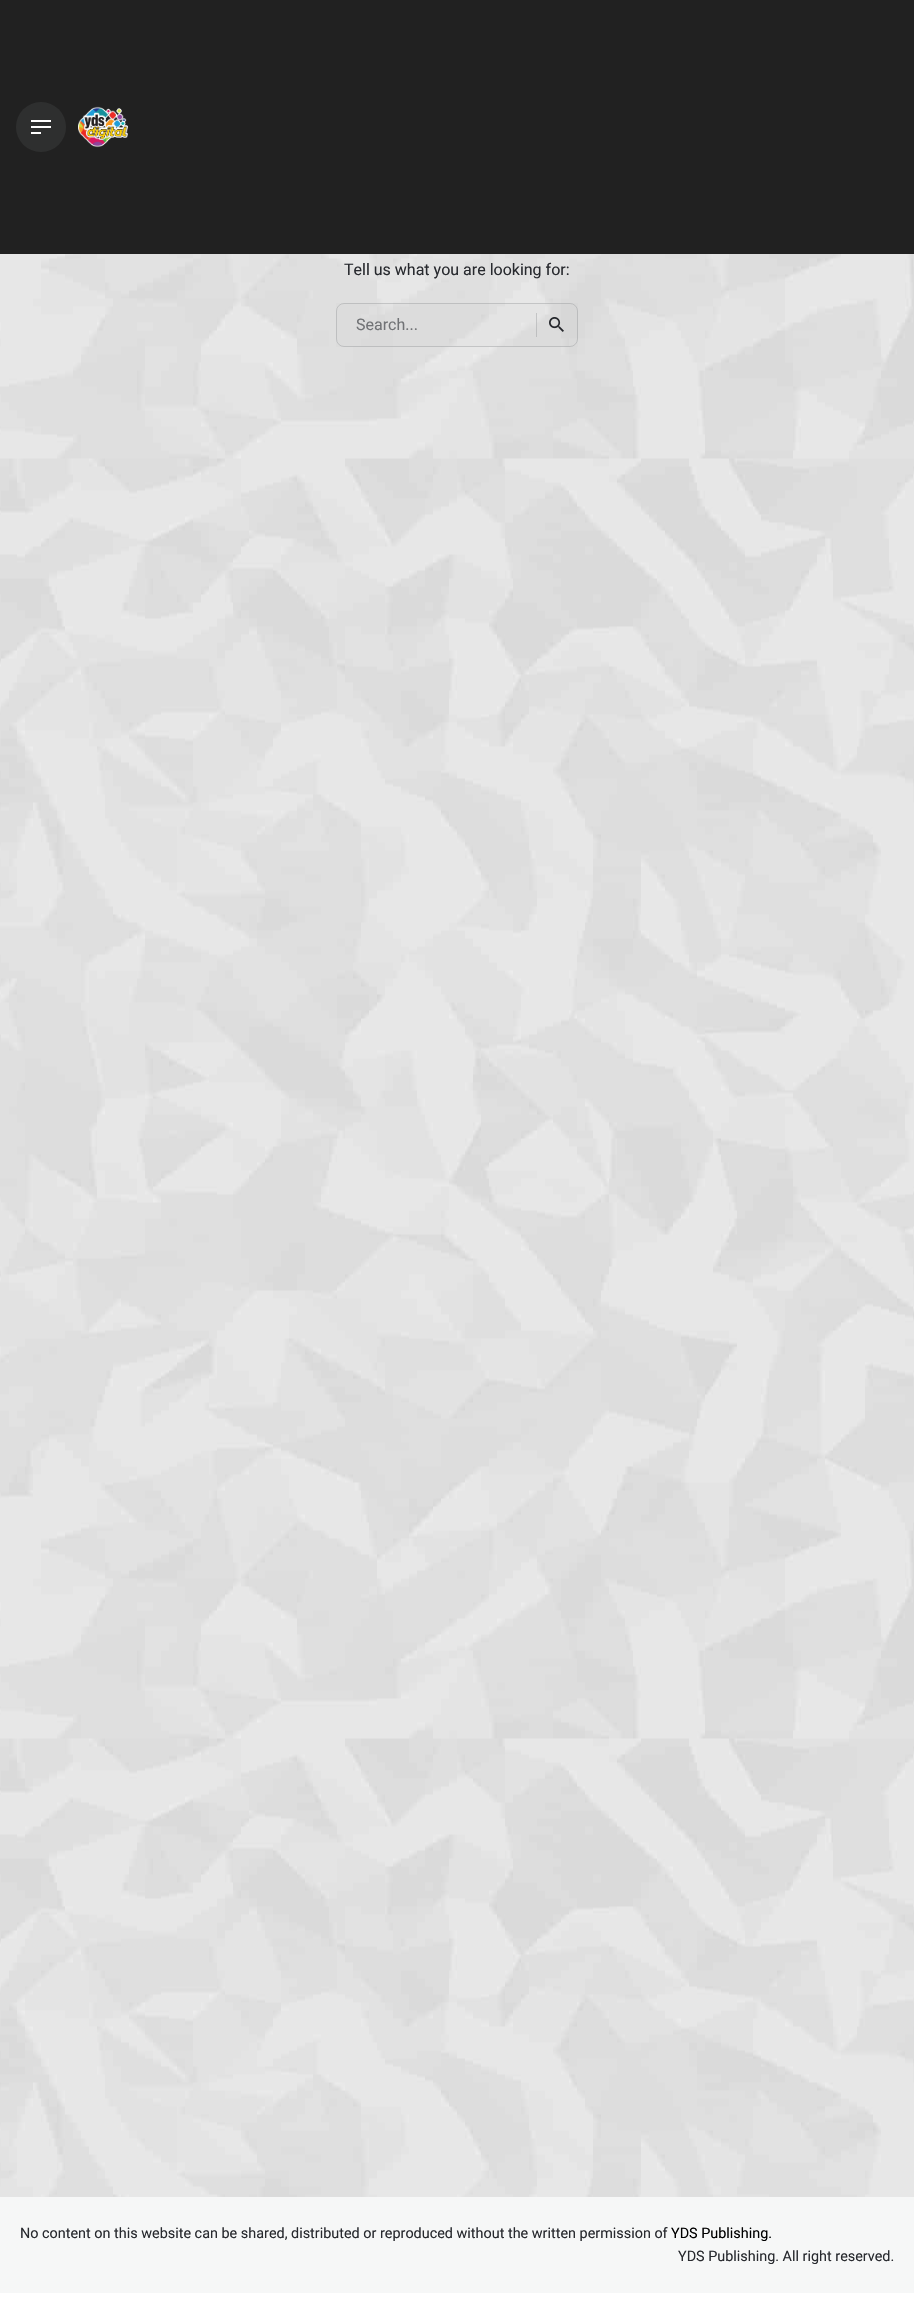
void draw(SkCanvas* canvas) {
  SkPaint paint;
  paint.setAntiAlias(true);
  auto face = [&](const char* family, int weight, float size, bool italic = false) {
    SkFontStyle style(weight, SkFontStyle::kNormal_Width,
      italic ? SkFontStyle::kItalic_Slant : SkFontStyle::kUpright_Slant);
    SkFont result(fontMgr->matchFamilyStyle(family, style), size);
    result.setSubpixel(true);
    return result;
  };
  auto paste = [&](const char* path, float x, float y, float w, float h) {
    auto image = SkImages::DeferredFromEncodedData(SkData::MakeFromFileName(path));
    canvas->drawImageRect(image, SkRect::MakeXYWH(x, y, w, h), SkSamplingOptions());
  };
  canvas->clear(0xffffffff);
  paint.setColor(0xff212121);
  canvas->drawRect(SkRect::MakeXYWH(0, 0, 914, 254), paint);
  paint.setColor(0xff2e2f2f);
  canvas->drawCircle(41, 127, 25, paint);
  {
    const struct { float x, y, w, h; SkColor color; } items[] = {
      {31, 120, 20, 2, 0xffffffff},
      {31, 126, 20, 2, 0xffffffff},
      {31, 132, 10, 2, 0xffffffff},
    };
    for (auto [x, y, w, h, color] : items) {
      paint.setColor(color);
      canvas->drawRect(SkRect::MakeXYWH(x, y, w, h), paint);
    }
  }
  paste("img/1.png", 78, 106, 50, 42);
  paste("img/2.png", 0, 254, 914, 1943);
  paint.setColor(0x0a919395);
  canvas->drawRect(SkRect::MakeXYWH(336, 303, 242, 44), paint);
  paint.setStroke(true);
  paint.setStrokeWidth(1);
  paint.setColor(0x66919395);
  canvas->drawRoundRect(SkRect::MakeXYWH(336.5f, 303.5f, 241, 43), 7.5f, 7.5f, paint);
  paint.setStroke(false);
  canvas->drawRect(SkRect::MakeXYWH(536, 313, 1, 24), paint);
  paste("img/3.png", 549, 317, 15, 15);
  paint.setColor(0xfff6f7f7);
  canvas->drawRect(SkRect::MakeXYWH(0, 2197, 914, 96), paint);
  auto f0 = face("Roboto", 400, 16);
  paint.setColor(0xff282a2f);
  canvas->drawString("Tell us what you are looking for:", 344, 275, f0, paint);
  paint.setColor(0xff717376);
  canvas->drawString("Search...", 356, 330, f0, paint);
  auto f1 = face("Roboto", 400, 14.4f);
  paint.setColor(0xff282a2f);
  canvas->drawString("No content on this website can be shared, distributed or reproduced without the written permission of", 20, 2238, f1, paint);
  paint.setColor(0xff000000);
  canvas->drawString("YDS Publishing.", 671, 2238, f1, paint);
  paint.setColor(0xff282a2f);
  canvas->drawString("YDS Publishing. All right reserved.", 678, 2261, f1, paint);
}
